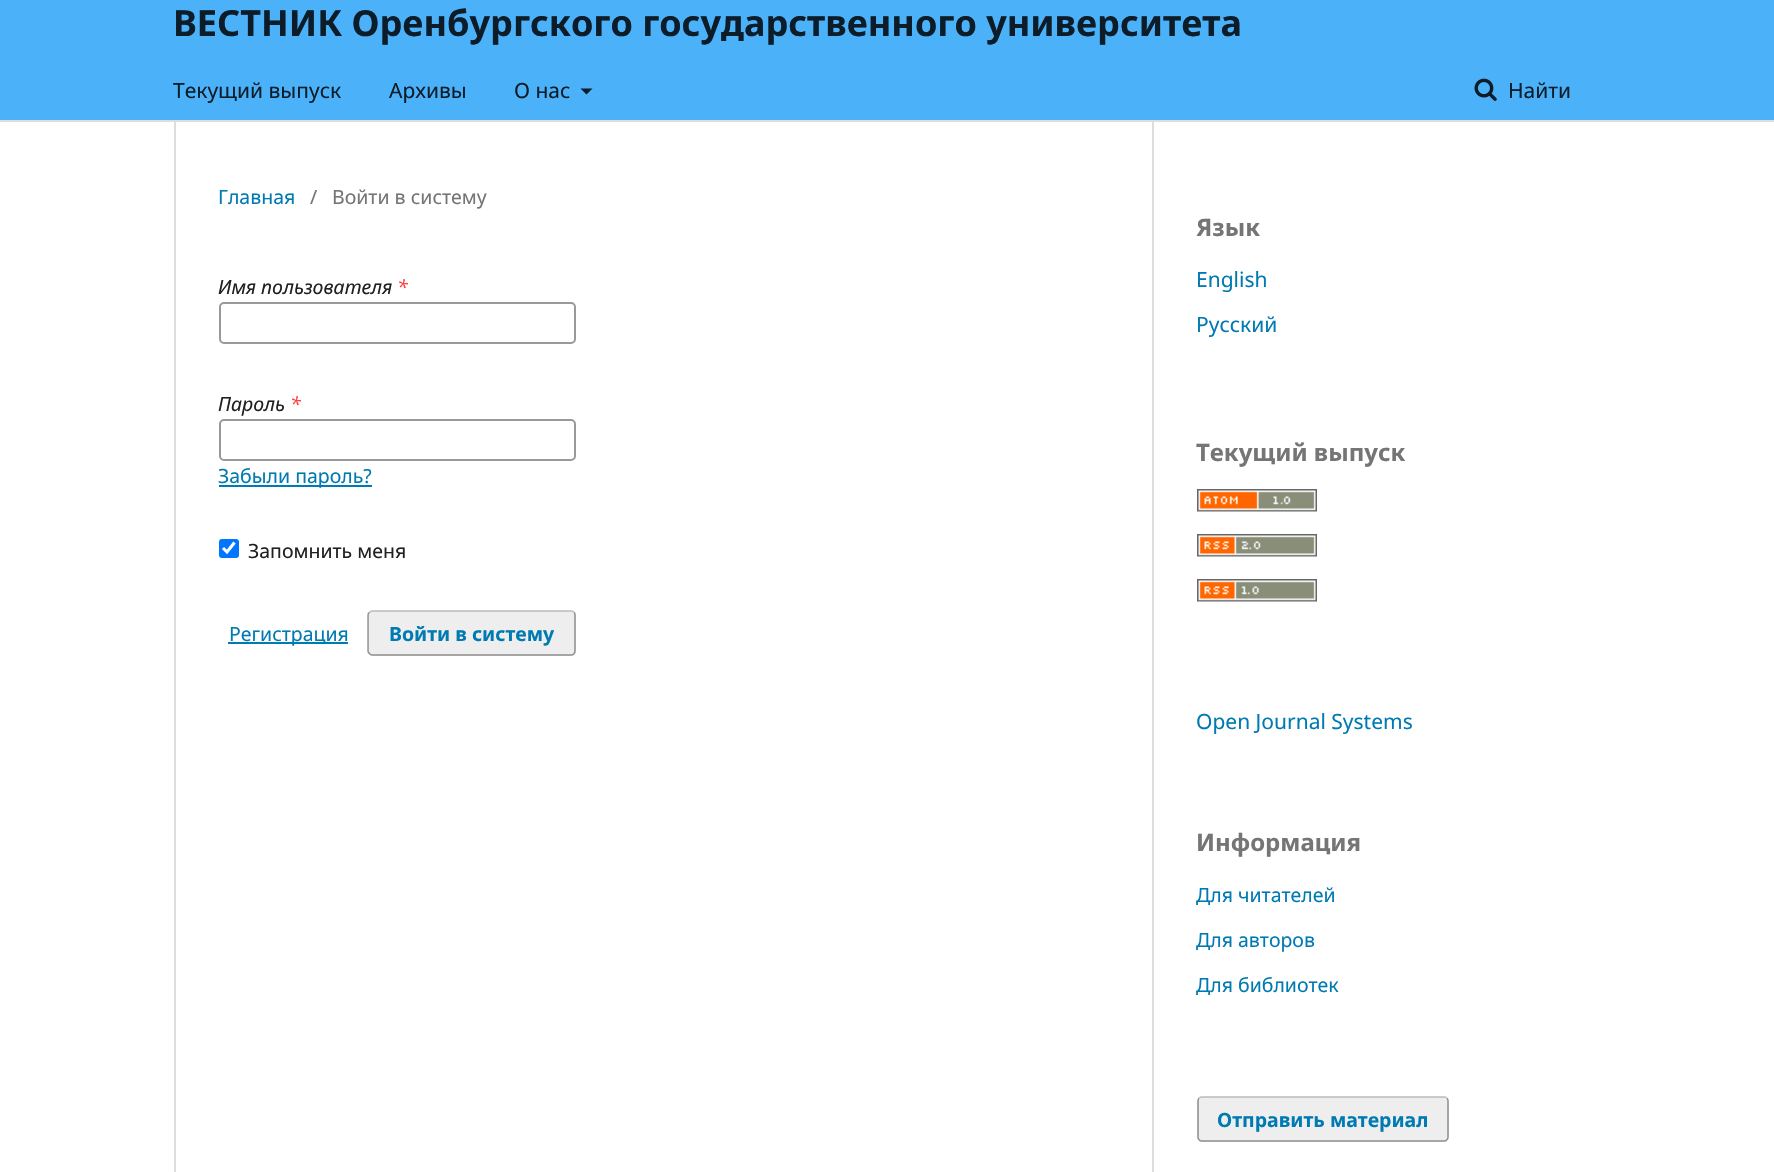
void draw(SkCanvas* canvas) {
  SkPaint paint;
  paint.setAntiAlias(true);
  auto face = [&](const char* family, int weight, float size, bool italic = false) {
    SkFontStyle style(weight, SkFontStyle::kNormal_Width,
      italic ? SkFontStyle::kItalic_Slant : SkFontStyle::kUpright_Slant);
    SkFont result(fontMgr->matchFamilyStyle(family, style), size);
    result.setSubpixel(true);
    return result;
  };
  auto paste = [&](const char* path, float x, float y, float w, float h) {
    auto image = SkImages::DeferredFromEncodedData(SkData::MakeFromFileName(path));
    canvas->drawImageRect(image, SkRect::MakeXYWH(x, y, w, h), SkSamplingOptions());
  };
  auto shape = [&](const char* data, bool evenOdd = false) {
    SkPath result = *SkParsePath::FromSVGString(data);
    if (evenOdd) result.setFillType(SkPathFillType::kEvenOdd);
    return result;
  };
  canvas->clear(0xffffffff);
  paint.setColor(0xff4bb1f9);
  canvas->drawRect(SkRect::MakeXYWH(0, 0, 1774, 120), paint);
  paint.setColor(0xffdddddd);
  canvas->drawRect(SkRect::MakeXYWH(0, 120, 1774, 2), paint);
  paint.setColor(0xff0c1c28);
  canvas->drawPath(shape("M580.5 88.5H592.5L586.5 94.5Z"), paint);
  paste("img/1.png", 1474, 78, 23, 23);
  paint.setColor(0xffdddddd);
  canvas->drawRect(SkRect::MakeXYWH(174, 122, 2, 1050), paint);
  paint.setStroke(true);
  paint.setStrokeWidth(2);
  paint.setColor(0xff999999);
  canvas->drawRoundRect(SkRect::MakeXYWH(220, 303, 355, 40), 4, 4, paint);
  canvas->drawRoundRect(SkRect::MakeXYWH(220, 420, 355, 40), 4, 4, paint);
  paint.setStroke(false);
  paint.setColor(0xff007ab2);
  canvas->drawRect(SkRect::MakeXYWH(219, 485, 153, 2), paint);
  paint.setColor(0xff0075ff);
  canvas->drawRoundRect(SkRect::MakeXYWH(219, 539, 20, 19), 3, 3, paint);
  paint.setStroke(true);
  paint.setStrokeWidth(3.1f);
  paint.setColor(0xffffffff);
  canvas->drawPath(shape("M223 548L227 552L234.5 542.5"), paint);
  paint.setStroke(false);
  paint.setColor(0xff007ab2);
  canvas->drawRect(SkRect::MakeXYWH(228, 642, 120, 2), paint);
  paint.setColor(0xffeeeeee);
  canvas->drawRoundRect(SkRect::MakeXYWH(368, 611, 208, 45), 5, 5, paint);
  paint.setStroke(true);
  paint.setStrokeWidth(1.5f);
  paint.setColor(0xffbbbbbb);
  canvas->drawPath(shape("M369.5 612.5C370 611.5 371 611 372 611H571.5C572.5 611 573.5 611.5 574 612.5"), paint);
  paint.setColor(0x66000000);
  canvas->drawPath(shape("M574 612.5C575 613 575 614 575 615V651C575 652 575 653 574 653.5C573.5 654.5 572.5 655 571.5 655H372C371 655 370 654.5 369.5 653.5C368.5 653 368 652 368 651V615C368 614 368.5 613 369.5 612.5"), paint);
  paint.setStroke(false);
  paint.setColor(0xffdddddd);
  canvas->drawRect(SkRect::MakeXYWH(1152, 122, 2, 1050), paint);
  paste("img/2.png", 1197, 489, 120, 23);
  paste("img/3.png", 1197, 534, 120, 23);
  paste("img/4.png", 1197, 579, 120, 23);
  paint.setColor(0xffeeeeee);
  canvas->drawRoundRect(SkRect::MakeXYWH(1197, 1097, 252, 45), 5, 5, paint);
  paint.setStroke(true);
  paint.setColor(0xffbbbbbb);
  canvas->drawPath(shape("M1199 1098.5C1199.5 1097.5 1200.5 1097 1201.5 1097H1444.5C1445.5 1097 1446.5 1097.5 1447 1098.5"), paint);
  paint.setColor(0x66000000);
  canvas->drawPath(shape("M1447 1098.5C1448 1099 1448 1100 1448 1101V1137C1448 1138 1448 1139 1447 1139.5C1446.5 1140.5 1445.5 1141 1444.5 1141H1201.5C1200.5 1141 1199.5 1140.5 1199 1139.5C1198 1139 1198 1138 1198 1137V1101C1198 1100 1198 1099 1199 1098.5"), paint);
  auto f0 = face("Noto Sans", 700, 36);
  paint.setStroke(false);
  paint.setColor(0xff0c1c28);
  canvas->drawString("ВЕСТНИК Оренбургского государственного университета", 173, 36, f0, paint);
  auto f1 = face("Noto Sans", 400, 21);
  {
    const struct { const char* s; float x, y; } items[] = {
      {"Текущий выпуск", 173, 98},
      {"Архивы", 389, 98},
      {"О нас", 514, 98},
      {"Найти", 1508, 98},
    };
    for (auto [s, x, y] : items) {
      canvas->drawString(s, x, y, f1, paint);
    }
  }
  auto f2 = face("Noto Sans", 400, 19.5f);
  paint.setColor(0xff007ab2);
  canvas->drawString("Главная", 218, 204, f2, paint);
  paint.setColor(0xff757575);
  canvas->drawString("/", 310, 204, f2, paint);
  canvas->drawString("Войти в систему", 332, 204, f2, paint);
  auto f3 = face("Noto Sans", 400, 19.5f, true);
  paint.setColor(0xff212121);
  canvas->drawString("Имя пользователя", 218, 294, f3, paint);
  paint.setColor(0xffff4040);
  canvas->drawString("*", 397, 294, f3, paint);
  paint.setColor(0xff212121);
  canvas->drawString("Пароль", 218, 411, f3, paint);
  paint.setColor(0xffff4040);
  canvas->drawString("*", 290, 411, f3, paint);
  paint.setColor(0xff007ab2);
  canvas->drawString("Забыли пароль?", 218, 483, f2, paint);
  paint.setColor(0xff212121);
  canvas->drawString("Запомнить меня", 248, 558, f2, paint);
  paint.setColor(0xff007ab2);
  canvas->drawString("Регистрация", 229, 641, f2, paint);
  auto f4 = face("Noto Sans", 700, 19.5f);
  canvas->drawString("Войти в систему", 389, 641, f4, paint);
  auto f5 = face("Noto Sans", 700, 24);
  paint.setColor(0xff757575);
  canvas->drawString("Язык", 1196, 236, f5, paint);
  paint.setColor(0xff007ab2);
  canvas->drawString("English", 1196, 287, f1, paint);
  canvas->drawString("Русский", 1196, 332, f1, paint);
  paint.setColor(0xff757575);
  canvas->drawString("Текущий выпуск", 1196, 461, f5, paint);
  paint.setColor(0xff007ab2);
  canvas->drawString("Open Journal Systems", 1196, 729, f1, paint);
  paint.setColor(0xff757575);
  canvas->drawString("Информация", 1196, 851, f5, paint);
  paint.setColor(0xff007ab2);
  {
    const struct { const char* s; float x, y; } items[] = {
      {"Для читателей", 1196, 902},
      {"Для авторов", 1196, 947},
      {"Для библиотек", 1196, 992},
    };
    for (auto [s, x, y] : items) {
      canvas->drawString(s, x, y, f2, paint);
    }
  }
  canvas->drawString("Отправить материал", 1217, 1127, f4, paint);
}
